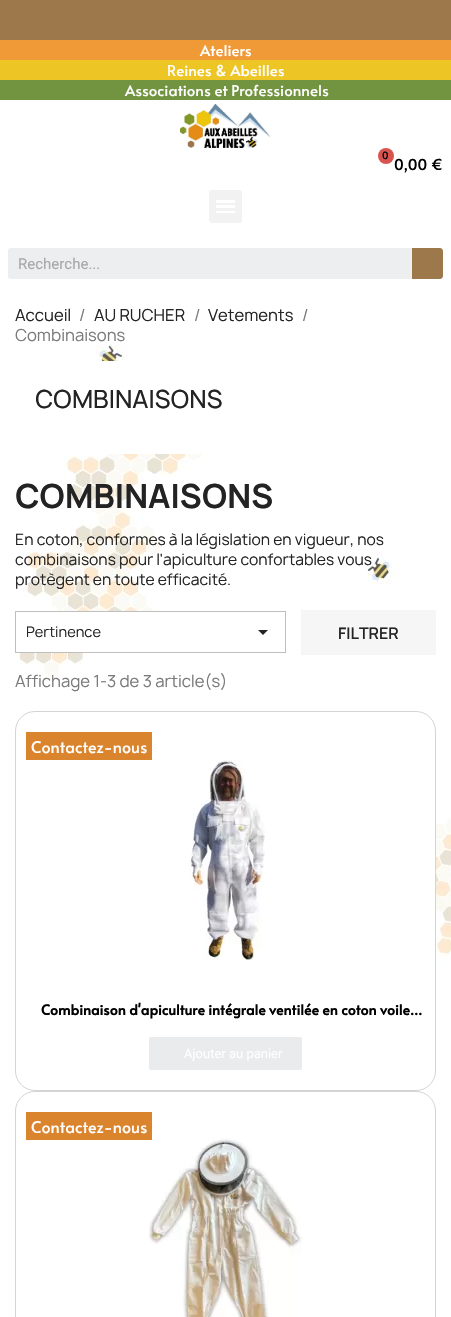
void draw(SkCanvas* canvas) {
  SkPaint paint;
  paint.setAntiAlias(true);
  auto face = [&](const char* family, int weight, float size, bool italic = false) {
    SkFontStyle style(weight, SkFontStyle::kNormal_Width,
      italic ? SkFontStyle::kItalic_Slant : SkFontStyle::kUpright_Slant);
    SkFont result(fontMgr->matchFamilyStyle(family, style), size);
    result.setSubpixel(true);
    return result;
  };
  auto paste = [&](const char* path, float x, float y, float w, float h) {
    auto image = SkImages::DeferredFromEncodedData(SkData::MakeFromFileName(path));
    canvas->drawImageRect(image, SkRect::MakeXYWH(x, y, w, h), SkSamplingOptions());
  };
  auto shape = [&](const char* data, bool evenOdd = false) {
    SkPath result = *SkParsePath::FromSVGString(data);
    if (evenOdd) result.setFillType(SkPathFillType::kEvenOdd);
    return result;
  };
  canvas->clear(0xffffffff);
  {
    const struct { float x, y, w, h; SkColor color; } items[] = {
      {0, 0, 451, 40, 0xff9c784b},
      {0, 40, 451, 20, 0xffef9a36},
      {0, 60, 451, 20, 0xffedc525},
      {0, 80, 451, 20, 0xff729440},
    };
    for (auto [x, y, w, h, color] : items) {
      paint.setColor(color);
      canvas->drawRect(SkRect::MakeXYWH(x, y, w, h), paint);
    }
  }
  paste("img/1.png", 180, 104, 90, 44);
  paint.setColor(0xffd9534f);
  canvas->drawCircle(386, 156, 8, paint);
  paint.setColor(0xfff2f2f2);
  canvas->drawRoundRect(SkRect::MakeXYWH(209, 190, 33, 33), 3, 3, paint);
  {
    const struct { float x, y, w, h; SkColor color; } items[] = {
      {216, 205, 19, 3, 0xffffffff},
      {216, 200, 19, 3, 0xffffffff},
      {216, 211, 19, 2, 0xffffffff},
    };
    for (auto [x, y, w, h, color] : items) {
      paint.setColor(color);
      canvas->drawRect(SkRect::MakeXYWH(x, y, w, h), paint);
    }
  }
  paint.setColor(0xffeceeef);
  canvas->drawRoundRect(SkRect::MakeXYWH(8, 248, 435, 31), 3, 3, paint);
  paint.setColor(0xff9c784b);
  canvas->drawPath(shape("M412 248H440C441.5 248 443 249.5 443 251V276C443 277.5 441.5 279 440 279H412Z"), paint);
  paste("img/2.png", 0, 280, 451, 1037);
  paint.setColor(0xffffffff);
  canvas->drawRect(SkRect::MakeXYWH(95, 361, 112, 93), paint);
  canvas->drawRect(SkRect::MakeXYWH(16, 612, 144, 40), paint);
  paint.setStroke(true);
  paint.setStrokeWidth(1);
  paint.setColor(0xffbfbfbf);
  canvas->drawRect(SkRect::MakeXYWH(15.5f, 611.5f, 270, 41), paint);
  paint.setStroke(false);
  paint.setColor(0xff232323);
  canvas->drawPath(shape("M258 630H268L263 635Z"), paint);
  paint.setColor(0xfff6f6f6);
  canvas->drawRect(SkRect::MakeXYWH(301, 610, 135, 45), paint);
  paint.setColor(0xffffffff);
  canvas->drawRoundRect(SkRect::MakeXYWH(15.5f, 711.5f, 420, 379), 19.5f, 19.5f, paint);
  paint.setStroke(true);
  paint.setColor(0xffd4d4d4);
  canvas->drawRoundRect(SkRect::MakeXYWH(15.5f, 711.5f, 420, 379), 19.5f, 19.5f, paint);
  paint.setStroke(false);
  paint.setColor(0xffdb842e);
  canvas->drawRect(SkRect::MakeXYWH(26, 732, 126, 28), paint);
  paste("img/3.png", 189, 760, 76, 201);
  paint.setColor(0xffe9ebec);
  canvas->drawRoundRect(SkRect::MakeXYWH(149, 1037, 153, 33), 2, 2, paint);
  paint.setColor(0xffffffff);
  canvas->drawRoundRect(SkRect::MakeXYWH(15.5f, 1091.5f, 420, 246), 19.5f, 19.5f, paint);
  paint.setStroke(true);
  paint.setColor(0xffd4d4d4);
  canvas->drawRoundRect(SkRect::MakeXYWH(15.5f, 1091.5f, 420, 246), 19.5f, 19.5f, paint);
  paste("img/4.png", 149, 1138, 153, 179);
  paint.setStroke(false);
  paint.setColor(0xffdb842e);
  canvas->drawRect(SkRect::MakeXYWH(26, 1112, 126, 28), paint);
  auto f0 = face("Alata", 400, 15);
  paint.setColor(0xffffffff);
  {
    const struct { const char* s; float x, y; } items[] = {
      {"Ateliers", 200, 56},
      {"Reines & Abeilles", 167, 76},
      {"Associations et Professionnels", 125, 96},
    };
    for (auto [s, x, y] : items) {
      canvas->drawString(s, x, y, f0, paint);
    }
  }
  auto f1 = face("Alata", 400, 10);
  paint.setColor(0xff000000);
  canvas->drawString("0", 382, 159, f1, paint);
  canvas->drawString("0,00 €", 394, 170, f0, paint);
  auto f2 = face("Roboto", 400, 15);
  paint.setColor(0xffa8a8a9);
  canvas->drawString("Recherche...", 18, 269, f2, paint);
  auto f3 = face("Manrope", 400, 16);
  paint.setColor(0xff232323);
  canvas->drawString("Accueil", 15, 321, f3, paint);
  paint.setColor(0xff7a7a7a);
  canvas->drawString("/", 79, 321, f3, paint);
  paint.setColor(0xff232323);
  canvas->drawString("AU RUCHER", 94, 321, f3, paint);
  paint.setColor(0xff7a7a7a);
  canvas->drawString("/", 194, 321, f3, paint);
  paint.setColor(0xff232323);
  canvas->drawString("Vetements", 208, 321, f3, paint);
  paint.setColor(0xff7a7a7a);
  canvas->drawString("/", 302, 321, f3, paint);
  canvas->drawString("Combinaisons", 15, 341, f3, paint);
  auto f4 = face("Manrope", 500, 24);
  paint.setColor(0xff232323);
  canvas->drawString("COMBINAISONS", 35, 408, f4, paint);
  auto f5 = face("Manrope", 700, 32);
  canvas->drawString("COMBINAISONS", 15, 508, f5, paint);
  auto f6 = face("Manrope", 400, 15);
  {
    const struct { const char* s; float x, y; } items[] = {
      {"En coton, conformes à la législation en vigueur, nos", 15, 545},
      {"combinaisons pour l'apiculture confortables vous", 15, 565},
      {"protègent en toute efficacité.", 15, 585},
    };
    for (auto [s, x, y] : items) {
      canvas->drawString(s, x, y, f6, paint);
    }
  }
  auto f7 = face("Manrope", 400, 14);
  canvas->drawString("Pertinence", 26, 637, f7, paint);
  auto f8 = face("Manrope", 600, 16);
  canvas->drawString("FILTRER", 338, 639, f8, paint);
  paint.setColor(0xff7a7a7a);
  canvas->drawString("Affichage 1-3 de 3 article(s)", 15, 687, f3, paint);
  auto f9 = face("Alata", 400, 16);
  paint.setColor(0xffffffff);
  canvas->drawString("Contactez-nous", 31, 753, f9, paint);
  auto f10 = face("Alata", 700, 14);
  paint.setColor(0xff000000);
  canvas->drawString("Combinaison d'apiculture intégrale ventilée en coton voile…", 41, 1015, f10, paint);
  auto f11 = face("Roboto", 400, 13);
  paint.setColor(0xffffffff);
  canvas->drawString("Ajouter au panier", 184, 1058, f11, paint);
  canvas->drawString("Contactez-nous", 31, 1133, f9, paint);
}
